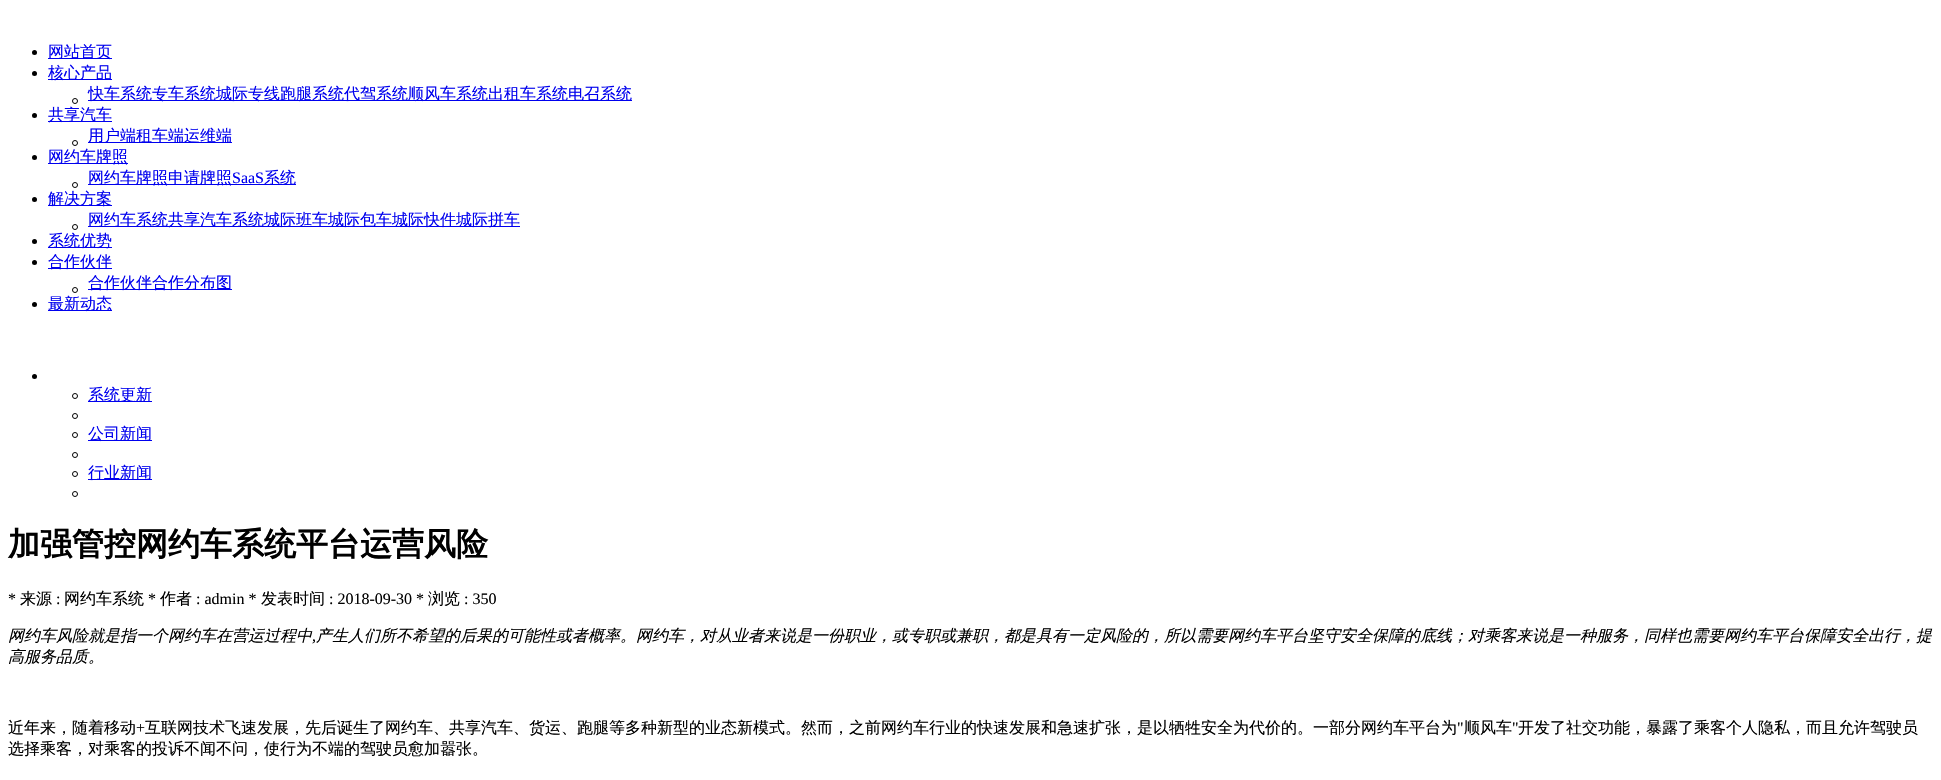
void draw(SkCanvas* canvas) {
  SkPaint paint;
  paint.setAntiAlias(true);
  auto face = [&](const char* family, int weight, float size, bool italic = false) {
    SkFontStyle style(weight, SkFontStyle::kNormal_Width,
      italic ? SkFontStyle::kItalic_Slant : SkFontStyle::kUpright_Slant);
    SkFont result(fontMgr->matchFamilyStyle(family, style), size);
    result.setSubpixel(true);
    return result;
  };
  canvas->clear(0xffffffff);
  paint.setColor(0xff000000);
  canvas->drawCircle(34.5f, 52.5f, 2.5f, paint);
  paint.setColor(0xff0000ee);
  canvas->drawRect(SkRect::MakeXYWH(48, 58, 64, 1), paint);
  paint.setColor(0xff000000);
  canvas->drawCircle(34.5f, 73.5f, 2.5f, paint);
  paint.setColor(0xff0000ee);
  canvas->drawRect(SkRect::MakeXYWH(48, 79, 64, 1), paint);
  paint.setStroke(true);
  paint.setStrokeWidth(1);
  paint.setColor(0xff000000);
  canvas->drawCircle(75, 101, 2.5f, paint);
  paint.setStroke(false);
  paint.setColor(0xff0000ee);
  canvas->drawRect(SkRect::MakeXYWH(88, 100, 544, 1), paint);
  paint.setColor(0xff000000);
  canvas->drawCircle(34.5f, 115.5f, 2.5f, paint);
  paint.setColor(0xff0000ee);
  canvas->drawRect(SkRect::MakeXYWH(48, 121, 64, 1), paint);
  paint.setStroke(true);
  paint.setColor(0xff000000);
  canvas->drawCircle(75, 143, 2.5f, paint);
  paint.setStroke(false);
  paint.setColor(0xff0000ee);
  canvas->drawRect(SkRect::MakeXYWH(88, 142, 144, 1), paint);
  paint.setColor(0xff000000);
  canvas->drawCircle(34.5f, 157.5f, 2.5f, paint);
  paint.setColor(0xff0000ee);
  canvas->drawRect(SkRect::MakeXYWH(48, 163, 80, 1), paint);
  paint.setStroke(true);
  paint.setColor(0xff000000);
  canvas->drawCircle(75, 185, 2.5f, paint);
  paint.setStroke(false);
  paint.setColor(0xff0000ee);
  canvas->drawRect(SkRect::MakeXYWH(88, 184, 208, 1), paint);
  paint.setColor(0xff000000);
  canvas->drawCircle(34.5f, 199.5f, 2.5f, paint);
  paint.setColor(0xff0000ee);
  canvas->drawRect(SkRect::MakeXYWH(48, 205, 64, 1), paint);
  paint.setStroke(true);
  paint.setColor(0xff000000);
  canvas->drawCircle(75, 227, 2.5f, paint);
  paint.setStroke(false);
  paint.setColor(0xff0000ee);
  canvas->drawRect(SkRect::MakeXYWH(88, 226, 432, 1), paint);
  paint.setColor(0xff000000);
  canvas->drawCircle(34.5f, 241.5f, 2.5f, paint);
  paint.setColor(0xff0000ee);
  canvas->drawRect(SkRect::MakeXYWH(48, 247, 64, 1), paint);
  paint.setColor(0xff000000);
  canvas->drawCircle(34.5f, 262.5f, 2.5f, paint);
  paint.setColor(0xff0000ee);
  canvas->drawRect(SkRect::MakeXYWH(48, 268, 64, 1), paint);
  paint.setStroke(true);
  paint.setColor(0xff000000);
  canvas->drawCircle(75, 290, 2.5f, paint);
  paint.setStroke(false);
  paint.setColor(0xff0000ee);
  canvas->drawRect(SkRect::MakeXYWH(88, 289, 144, 1), paint);
  paint.setColor(0xff000000);
  canvas->drawCircle(34.5f, 304.5f, 2.5f, paint);
  paint.setColor(0xff0000ee);
  canvas->drawRect(SkRect::MakeXYWH(48, 310, 64, 1), paint);
  paint.setColor(0xff000000);
  canvas->drawCircle(34.5f, 376.5f, 2.5f, paint);
  paint.setStroke(true);
  canvas->drawCircle(75, 396, 2.5f, paint);
  paint.setStroke(false);
  paint.setColor(0xff0000ee);
  canvas->drawRect(SkRect::MakeXYWH(88, 401, 64, 1), paint);
  paint.setStroke(true);
  paint.setColor(0xff000000);
  canvas->drawCircle(75, 416, 2.5f, paint);
  canvas->drawCircle(75, 435, 2.5f, paint);
  paint.setStroke(false);
  paint.setColor(0xff0000ee);
  canvas->drawRect(SkRect::MakeXYWH(88, 440, 64, 1), paint);
  paint.setStroke(true);
  paint.setColor(0xff000000);
  canvas->drawCircle(75, 455, 2.5f, paint);
  canvas->drawCircle(75, 474, 2.5f, paint);
  paint.setStroke(false);
  paint.setColor(0xff0000ee);
  canvas->drawRect(SkRect::MakeXYWH(88, 479, 64, 1), paint);
  paint.setStroke(true);
  paint.setColor(0xff000000);
  canvas->drawCircle(75, 494, 2.5f, paint);
  auto f0 = face("WenQuanYi Zen Hei", 500, 16);
  paint.setStroke(false);
  paint.setColor(0xff0000ee);
  {
    const struct { const char* s; float x, y; } items[] = {
      {"网站首页", 48, 57},
      {"核心产品", 48, 78},
      {"快车系统专车系统城际专线跑腿系统代驾系统顺风车系统出租车系统电召系统", 88, 99},
      {"共享汽车", 48, 120},
      {"用户端租车端运维端", 88, 141},
      {"网约车牌照", 48, 162},
      {"网约车牌照申请牌照", 88, 183},
    };
    for (auto [s, x, y] : items) {
      canvas->drawString(s, x, y, f0, paint);
    }
  }
  auto f1 = face("Liberation Serif", 400, 16);
  canvas->drawString("SaaS", 232, 183, f1, paint);
  {
    const struct { const char* s; float x, y; } items[] = {
      {"系统", 264, 183},
      {"解决方案", 48, 204},
      {"网约车系统共享汽车系统城际班车城际包车城际快件城际拼车", 88, 225},
      {"系统优势", 48, 246},
      {"合作伙伴", 48, 267},
      {"合作伙伴合作分布图", 88, 288},
      {"最新动态", 48, 309},
      {"系统更新", 88, 400},
      {"公司新闻", 88, 439},
      {"行业新闻", 88, 478},
    };
    for (auto [s, x, y] : items) {
      canvas->drawString(s, x, y, f0, paint);
    }
  }
  auto f2 = face("WenQuanYi Zen Hei", 700, 32);
  paint.setColor(0xff000000);
  canvas->drawString("加强管控网约车系统平台运营风险", 8, 555, f2, paint);
  canvas->drawString("*", 8, 604, f1, paint);
  canvas->drawString("来源", 20, 604, f0, paint);
  canvas->drawString(":", 56, 604, f1, paint);
  canvas->drawString("网约车系统", 64, 604, f0, paint);
  canvas->drawString("*", 148, 604, f1, paint);
  canvas->drawString("作者", 160, 604, f0, paint);
  canvas->drawString(": admin *", 196, 604, f1, paint);
  canvas->drawString("发表时间", 261, 604, f0, paint);
  canvas->drawString(": 2018-09-30 *", 329, 604, f1, paint);
  canvas->drawString("浏览", 428, 604, f0, paint);
  canvas->drawString(": 350", 464, 604, f1, paint);
  auto f3 = face("WenQuanYi Zen Hei", 500, 16, true);
  canvas->drawString("网约车风险就是指一个网约车在营运过程中", 8, 641, f3, paint);
  auto f4 = face("Liberation Serif", 400, 16, true);
  canvas->drawString(",", 312, 641, f4, paint);
  canvas->drawString("产生人们所不希望的后果的可能性或者概率。网约车，对从业者来说是一份职业，或专职或兼职，都是具有一定风险的，所以需要网约车平台坚守安全保障的底线；对乘客来说是一种服务，同样也需要网约车平台保障安全出行，提", 316, 641, f3, paint);
  canvas->drawString("高服务品质。", 8, 662, f3, paint);
  canvas->drawString("近年来，随着移动", 8, 733, f0, paint);
  canvas->drawString("+", 136, 733, f1, paint);
  canvas->drawString("互联网技术飞速发展，先后诞生了网约车、共享汽车、货运、跑腿等多种新型的业态新模式。然而，之前网约车行业的快速发展和急速扩张，是以牺牲安全为代价的。一部分网约车平台为", 145, 733, f0, paint);
  canvas->drawString("\"", 1457, 733, f1, paint);
  canvas->drawString("顺风车", 1464, 733, f0, paint);
  canvas->drawString("\"", 1512, 733, f1, paint);
  canvas->drawString("开发了社交功能，暴露了乘客个人隐私，而且允许驾驶员", 1518, 733, f0, paint);
  canvas->drawString("选择乘客，对乘客的投诉不闻不问，使行为不端的驾驶员愈加嚣张。", 8, 754, f0, paint);
}
